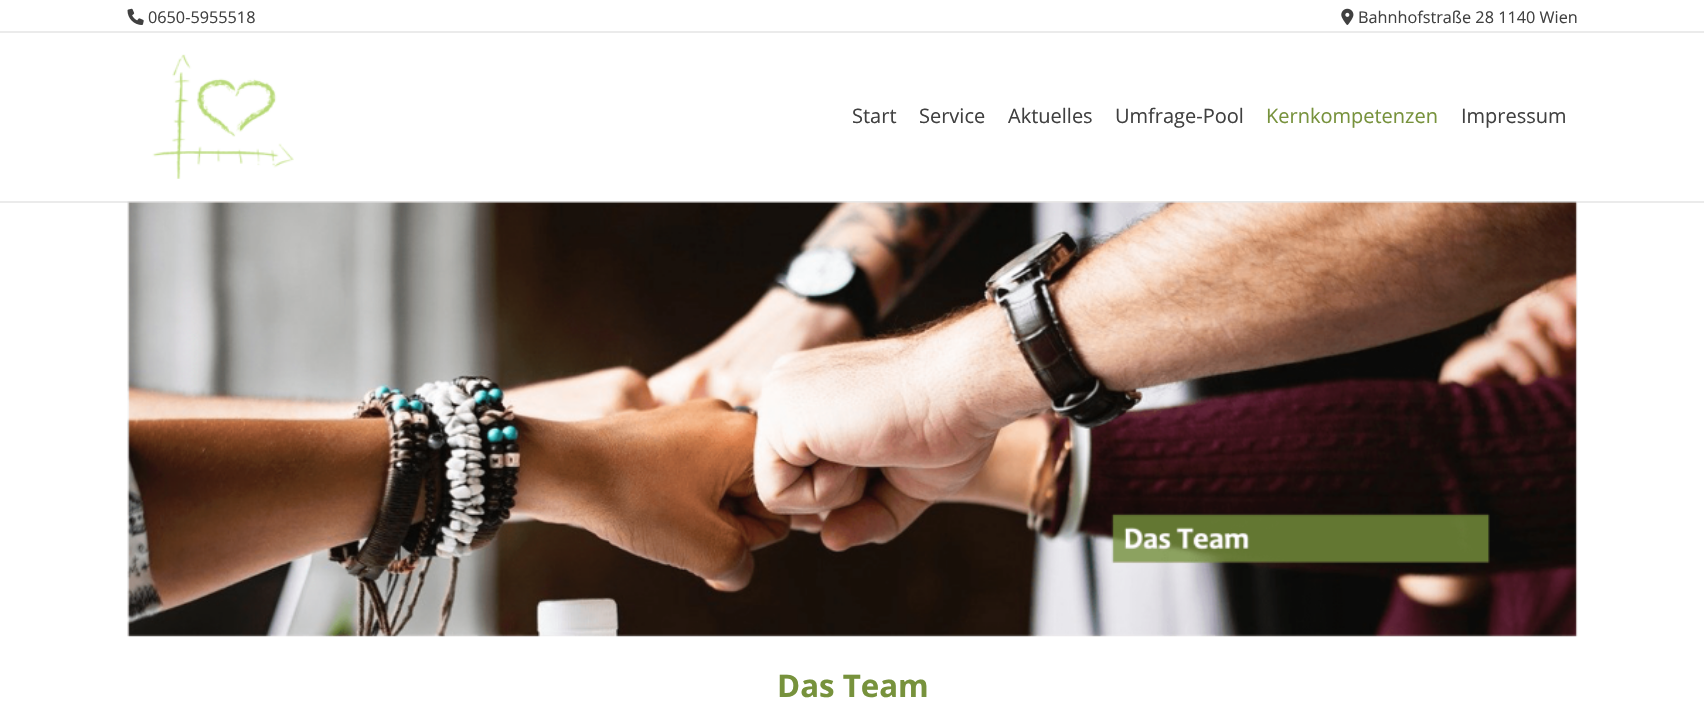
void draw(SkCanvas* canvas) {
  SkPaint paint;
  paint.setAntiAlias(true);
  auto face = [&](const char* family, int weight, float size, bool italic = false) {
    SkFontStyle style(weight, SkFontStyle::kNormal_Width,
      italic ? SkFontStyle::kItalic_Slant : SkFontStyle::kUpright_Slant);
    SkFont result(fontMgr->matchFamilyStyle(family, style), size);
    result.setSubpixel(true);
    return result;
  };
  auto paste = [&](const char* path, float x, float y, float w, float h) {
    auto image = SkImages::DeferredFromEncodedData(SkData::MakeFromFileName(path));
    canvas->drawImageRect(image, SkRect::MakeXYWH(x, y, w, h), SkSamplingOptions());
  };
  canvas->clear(0xffffffff);
  paint.setColor(0xffebebeb);
  canvas->drawRect(SkRect::MakeXYWH(0, 201, 1704, 2), paint);
  canvas->drawRect(SkRect::MakeXYWH(0, 31, 1704, 2), paint);
  paste("img/1.png", 127, 8, 17, 17);
  paste("img/2.png", 1341, 8, 13, 17);
  paste("img/3.png", 152, 54, 142, 125);
  paste("img/4.png", 127, 201, 1451, 436);
  auto f0 = face("Open Sans", 400, 16.25f);
  paint.setColor(0xff404040);
  canvas->drawString("0650-5955518", 148, 23, f0, paint);
  canvas->drawString("Bahnhofstraße 28 1140 Wien", 1358, 23, f0, paint);
  auto f1 = face("Open Sans", 400, 20);
  {
    const struct { const char* s; float x, y; } items[] = {
      {"Start", 852, 123},
      {"Service", 919, 123},
      {"Aktuelles", 1008, 123},
      {"Umfrage-Pool", 1115, 123},
    };
    for (auto [s, x, y] : items) {
      canvas->drawString(s, x, y, f1, paint);
    }
  }
  paint.setColor(0xff77923c);
  canvas->drawString("Kernkompetenzen", 1266, 123, f1, paint);
  paint.setColor(0xff404040);
  canvas->drawString("Impressum", 1461, 123, f1, paint);
  auto f2 = face("Open Sans", 700, 31.25f);
  paint.setColor(0xff77923c);
  canvas->drawString("Das Team", 777, 697, f2, paint);
}
